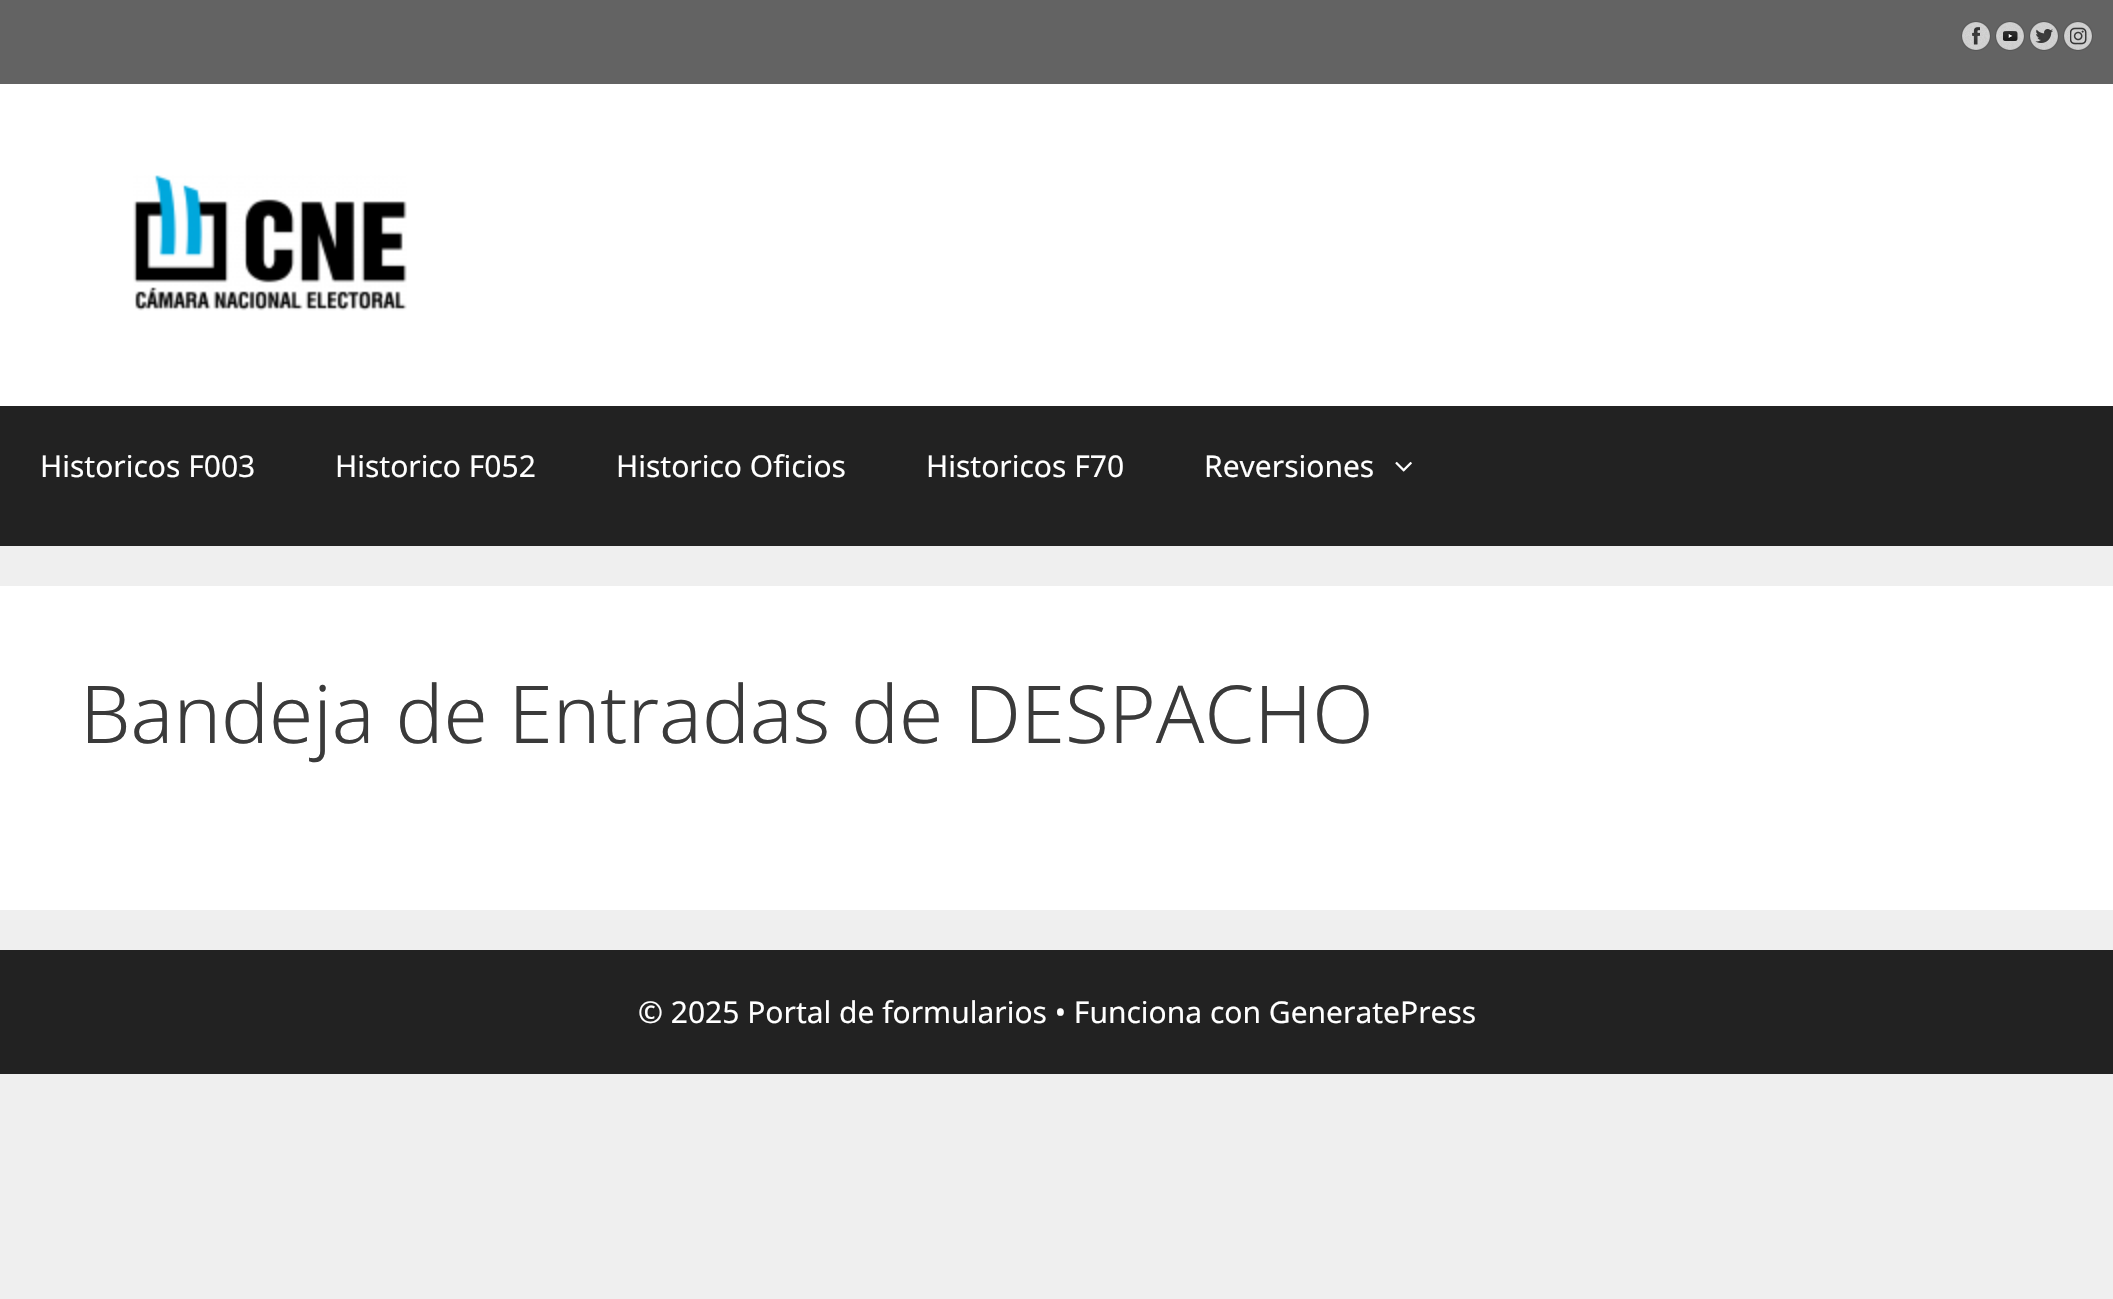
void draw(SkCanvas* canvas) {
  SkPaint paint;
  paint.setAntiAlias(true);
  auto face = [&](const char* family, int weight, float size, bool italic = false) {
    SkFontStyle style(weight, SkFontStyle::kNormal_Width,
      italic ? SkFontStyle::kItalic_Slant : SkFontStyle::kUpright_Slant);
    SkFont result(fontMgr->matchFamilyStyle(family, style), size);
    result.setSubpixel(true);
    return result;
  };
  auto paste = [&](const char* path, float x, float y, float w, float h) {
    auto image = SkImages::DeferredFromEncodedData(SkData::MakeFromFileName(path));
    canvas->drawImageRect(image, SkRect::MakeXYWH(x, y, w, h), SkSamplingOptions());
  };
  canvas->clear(0xffefefef);
  paint.setColor(0xff636363);
  canvas->drawRect(SkRect::MakeXYWH(0, 0, 2113, 84), paint);
  paste("img/1.png", 1961, 21, 30, 30);
  paste("img/2.png", 1995, 21, 30, 30);
  paste("img/3.png", 2029, 21, 30, 30);
  paste("img/4.png", 2063, 21, 30, 30);
  paint.setColor(0xffffffff);
  canvas->drawRect(SkRect::MakeXYWH(0, 84, 2113, 322), paint);
  paste("img/5.png", 133, 175, 274, 136);
  paint.setColor(0xff222222);
  canvas->drawRect(SkRect::MakeXYWH(0, 406, 2113, 140), paint);
  paste("img/6.png", 1395, 461, 17, 11);
  paint.setColor(0xffffffff);
  canvas->drawRect(SkRect::MakeXYWH(0, 586, 2113, 324), paint);
  paint.setColor(0xff222222);
  canvas->drawRect(SkRect::MakeXYWH(0, 950, 2113, 124), paint);
  auto f0 = face("Noto Sans", 400, 30);
  paint.setColor(0xffffffff);
  {
    const struct { const char* s; float x, y; } items[] = {
      {"Historicos F003", 40, 477},
      {"Historico F052", 335, 477},
      {"Historico Oficios", 616, 477},
      {"Historicos F70", 926, 477},
      {"Reversiones", 1204, 477},
    };
    for (auto [s, x, y] : items) {
      canvas->drawString(s, x, y, f0, paint);
    }
  }
  auto f1 = face("Noto Sans", 300, 80);
  paint.setColor(0xff3a3a3a);
  canvas->drawString("Bandeja de Entradas de DESPACHO", 80, 743, f1, paint);
  paint.setColor(0xffffffff);
  canvas->drawString("© 2025 Portal de formularios • Funciona con GeneratePress", 638, 1023, f0, paint);
}
